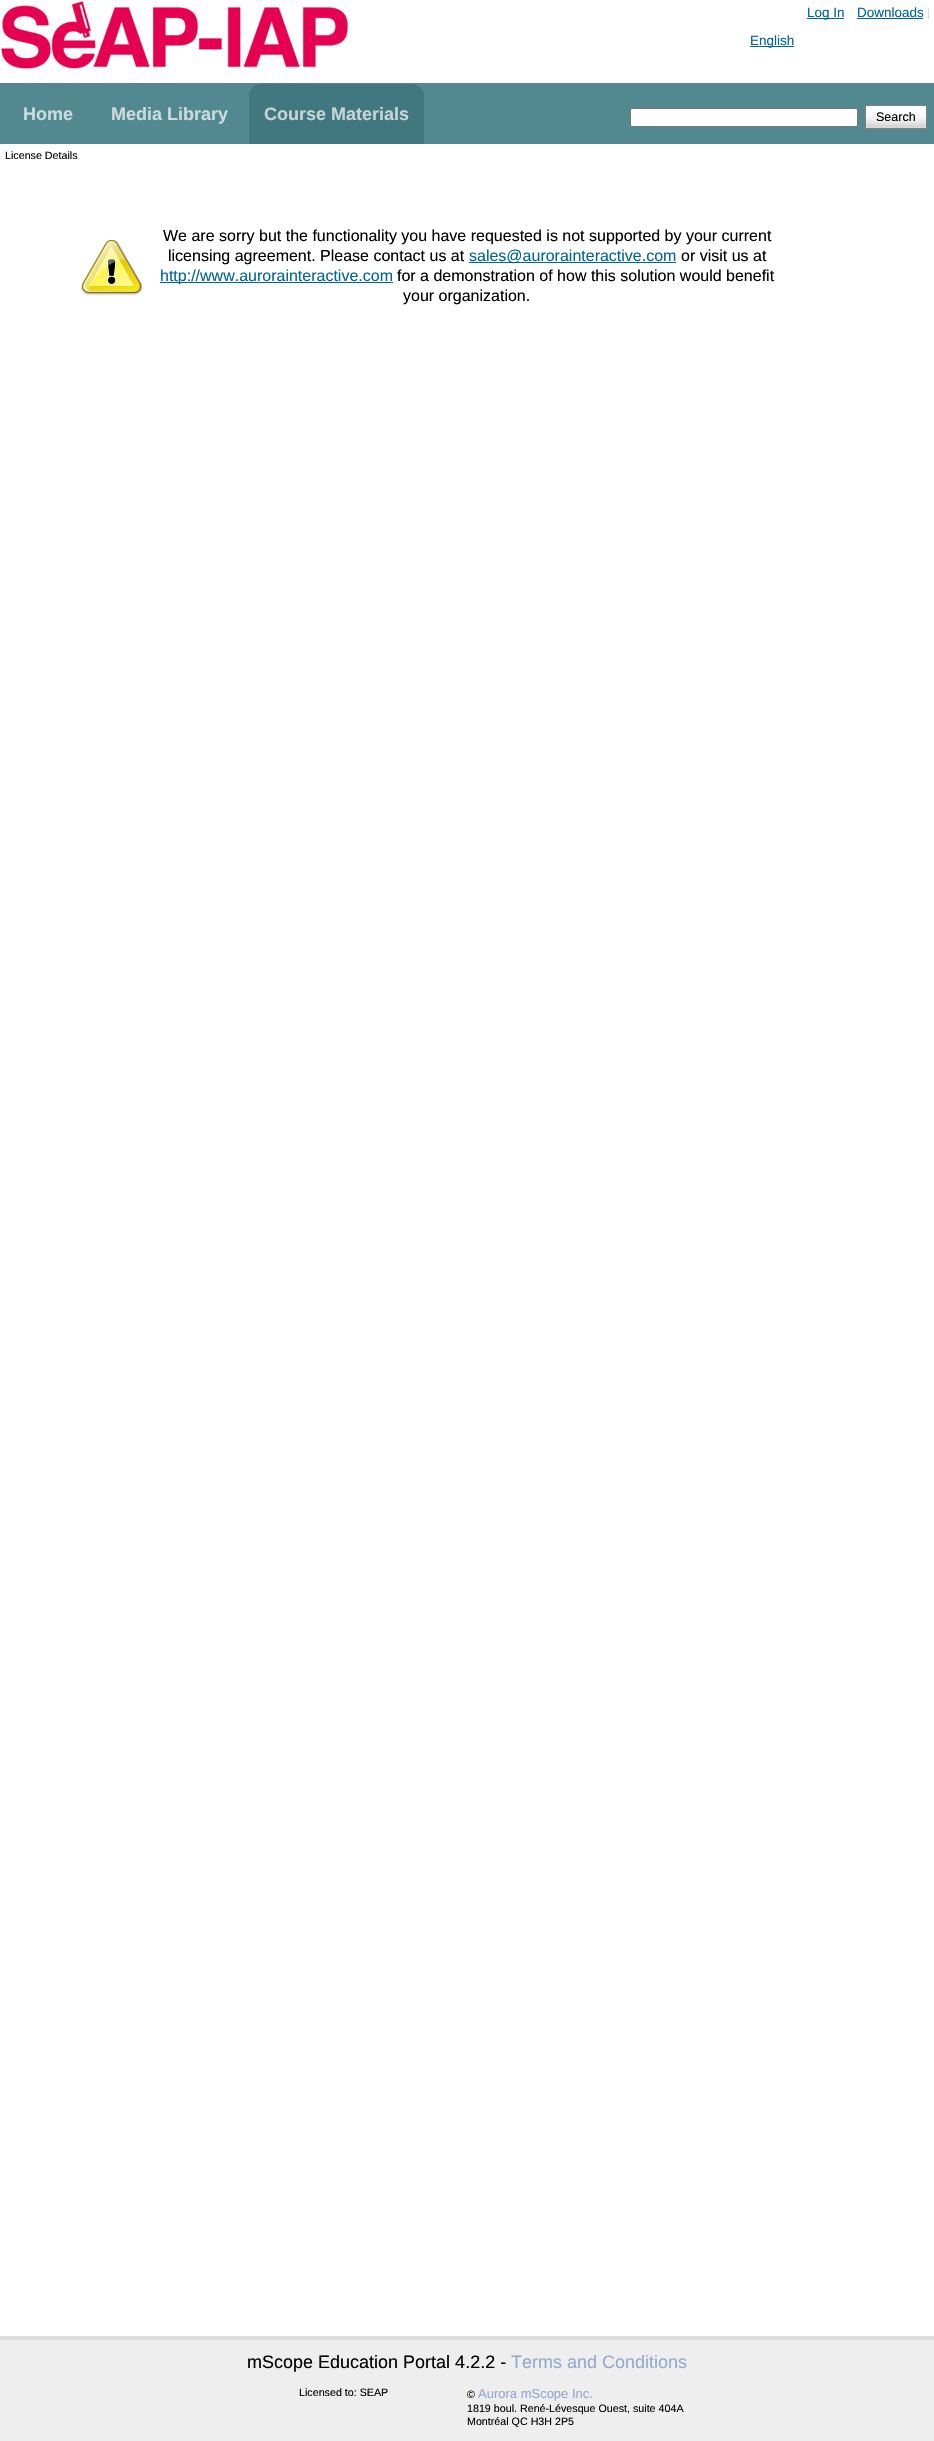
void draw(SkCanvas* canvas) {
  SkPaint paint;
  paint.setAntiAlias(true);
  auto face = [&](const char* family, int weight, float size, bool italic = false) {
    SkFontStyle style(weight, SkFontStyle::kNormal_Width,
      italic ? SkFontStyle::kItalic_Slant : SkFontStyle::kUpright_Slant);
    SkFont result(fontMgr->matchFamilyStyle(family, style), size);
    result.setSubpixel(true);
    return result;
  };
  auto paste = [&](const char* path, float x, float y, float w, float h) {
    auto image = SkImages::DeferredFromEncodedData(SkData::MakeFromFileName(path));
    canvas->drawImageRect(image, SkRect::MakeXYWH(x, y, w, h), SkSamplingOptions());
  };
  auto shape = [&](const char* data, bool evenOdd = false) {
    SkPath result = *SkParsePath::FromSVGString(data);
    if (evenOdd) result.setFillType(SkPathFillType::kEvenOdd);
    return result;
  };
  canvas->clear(0xffffffff);
  paste("img/1.png", 0, 0, 349, 72);
  {
    const struct { float x, y, w, h; SkColor color; } items[] = {
      {807, 18, 37, 1, 0xff006699},
      {928, 8, 1, 11, 0xffdddddd},
      {857, 18, 66, 1, 0xff006699},
      {750, 46, 44, 1, 0xff006699},
      {0, 83, 934, 61, 0xff528990},
    };
    for (auto [x, y, w, h, color] : items) {
      paint.setColor(color);
      canvas->drawRect(SkRect::MakeXYWH(x, y, w, h), paint);
    }
  }
  paint.setColor(0xff41777e);
  canvas->drawPath(shape("M261 84H412C418.5 84 424 89.5 424 96V144H249V96C249 89.5 254.5 84 261 84Z"), paint);
  paint.setColor(0xffffffff);
  canvas->drawRoundRect(SkRect::MakeXYWH(630.5f, 108.5f, 227, 18), 1.5f, 1.5f, paint);
  paint.setStroke(true);
  paint.setStrokeWidth(1);
  paint.setColor(0xff767676);
  canvas->drawRoundRect(SkRect::MakeXYWH(630.5f, 108.5f, 227, 18), 1.5f, 1.5f, paint);
  paste("img/2.png", 866, 106, 60, 22);
  paint.setColor(0xff808080);
  canvas->drawRect(SkRect::MakeXYWH(865.5f, 105.5f, 61, 23), paint);
  paste("img/3.png", 81, 239, 62, 57);
  paint.setStroke(false);
  {
    const struct { float x, y, w, h; SkColor color; } items[] = {
      {469, 262, 207, 1, 0xff006699},
      {160, 282, 233, 1, 0xff006699},
      {0, 2340, 934, 101, 0xffeeeeee},
      {0, 2336, 934, 4, 0xffdddddd},
    };
    for (auto [x, y, w, h, color] : items) {
      paint.setColor(color);
      canvas->drawRect(SkRect::MakeXYWH(x, y, w, h), paint);
    }
  }
  auto f0 = face("Liberation Sans", 400, 13.5f);
  paint.setColor(0xff006699);
  {
    const struct { const char* s; float x, y; } items[] = {
      {"Log In", 807, 17},
      {"Downloads", 857, 17},
      {"English", 750, 45},
    };
    for (auto [s, x, y] : items) {
      canvas->drawString(s, x, y, f0, paint);
    }
  }
  auto f1 = face("Liberation Sans", 700, 18);
  paint.setColor(0xffcbdcde);
  canvas->drawString("Home", 23, 120, f1, paint);
  canvas->drawString("Media Library", 111, 120, f1, paint);
  paint.setColor(0xffc6d6d8);
  canvas->drawString("Course Materials", 264, 120, f1, paint);
  auto f2 = face("Liberation Sans", 400, 12.5f);
  paint.setColor(0xff000000);
  canvas->drawString("Search", 876, 121, f2, paint);
  auto f3 = face("Liberation Sans", 400, 10.7f);
  canvas->drawString("License Details", 5, 159, f3, paint);
  auto f4 = face("Liberation Sans", 400, 16);
  canvas->drawString("We are sorry but the functionality you have requested is not supported by your current", 163, 241, f4, paint);
  canvas->drawString("licensing agreement. Please contact us at", 168, 261, f4, paint);
  paint.setColor(0xff006699);
  canvas->drawString("sales@aurorainteractive.com", 469, 261, f4, paint);
  paint.setColor(0xff000000);
  canvas->drawString("or visit us at", 681, 261, f4, paint);
  paint.setColor(0xff006699);
  canvas->drawString("http://www.aurorainteractive.com", 160, 281, f4, paint);
  paint.setColor(0xff000000);
  canvas->drawString("for a demonstration of how this solution would benefit", 397, 281, f4, paint);
  canvas->drawString("your organization.", 403, 301, f4, paint);
  auto f5 = face("Liberation Sans", 400, 18);
  canvas->drawString("mScope Education Portal 4.2.2 -", 247, 2368, f5, paint);
  paint.setColor(0xff95a9cd);
  canvas->drawString("Terms and Conditions", 511, 2368, f5, paint);
  paint.setColor(0xff000000);
  canvas->drawString("Licensed to: SEAP", 299, 2396, f3, paint);
  canvas->drawString("©", 467, 2398, f3, paint);
  auto f6 = face("Liberation Sans", 400, 13);
  paint.setColor(0xff95a9cd);
  canvas->drawString("Aurora mScope Inc.", 478, 2398, f6, paint);
  paint.setColor(0xff000000);
  canvas->drawString("1819 boul. René-Lévesque Ouest, suite 404A", 467, 2412, f3, paint);
  canvas->drawString("Montréal QC H3H 2P5", 467, 2425, f3, paint);
}
